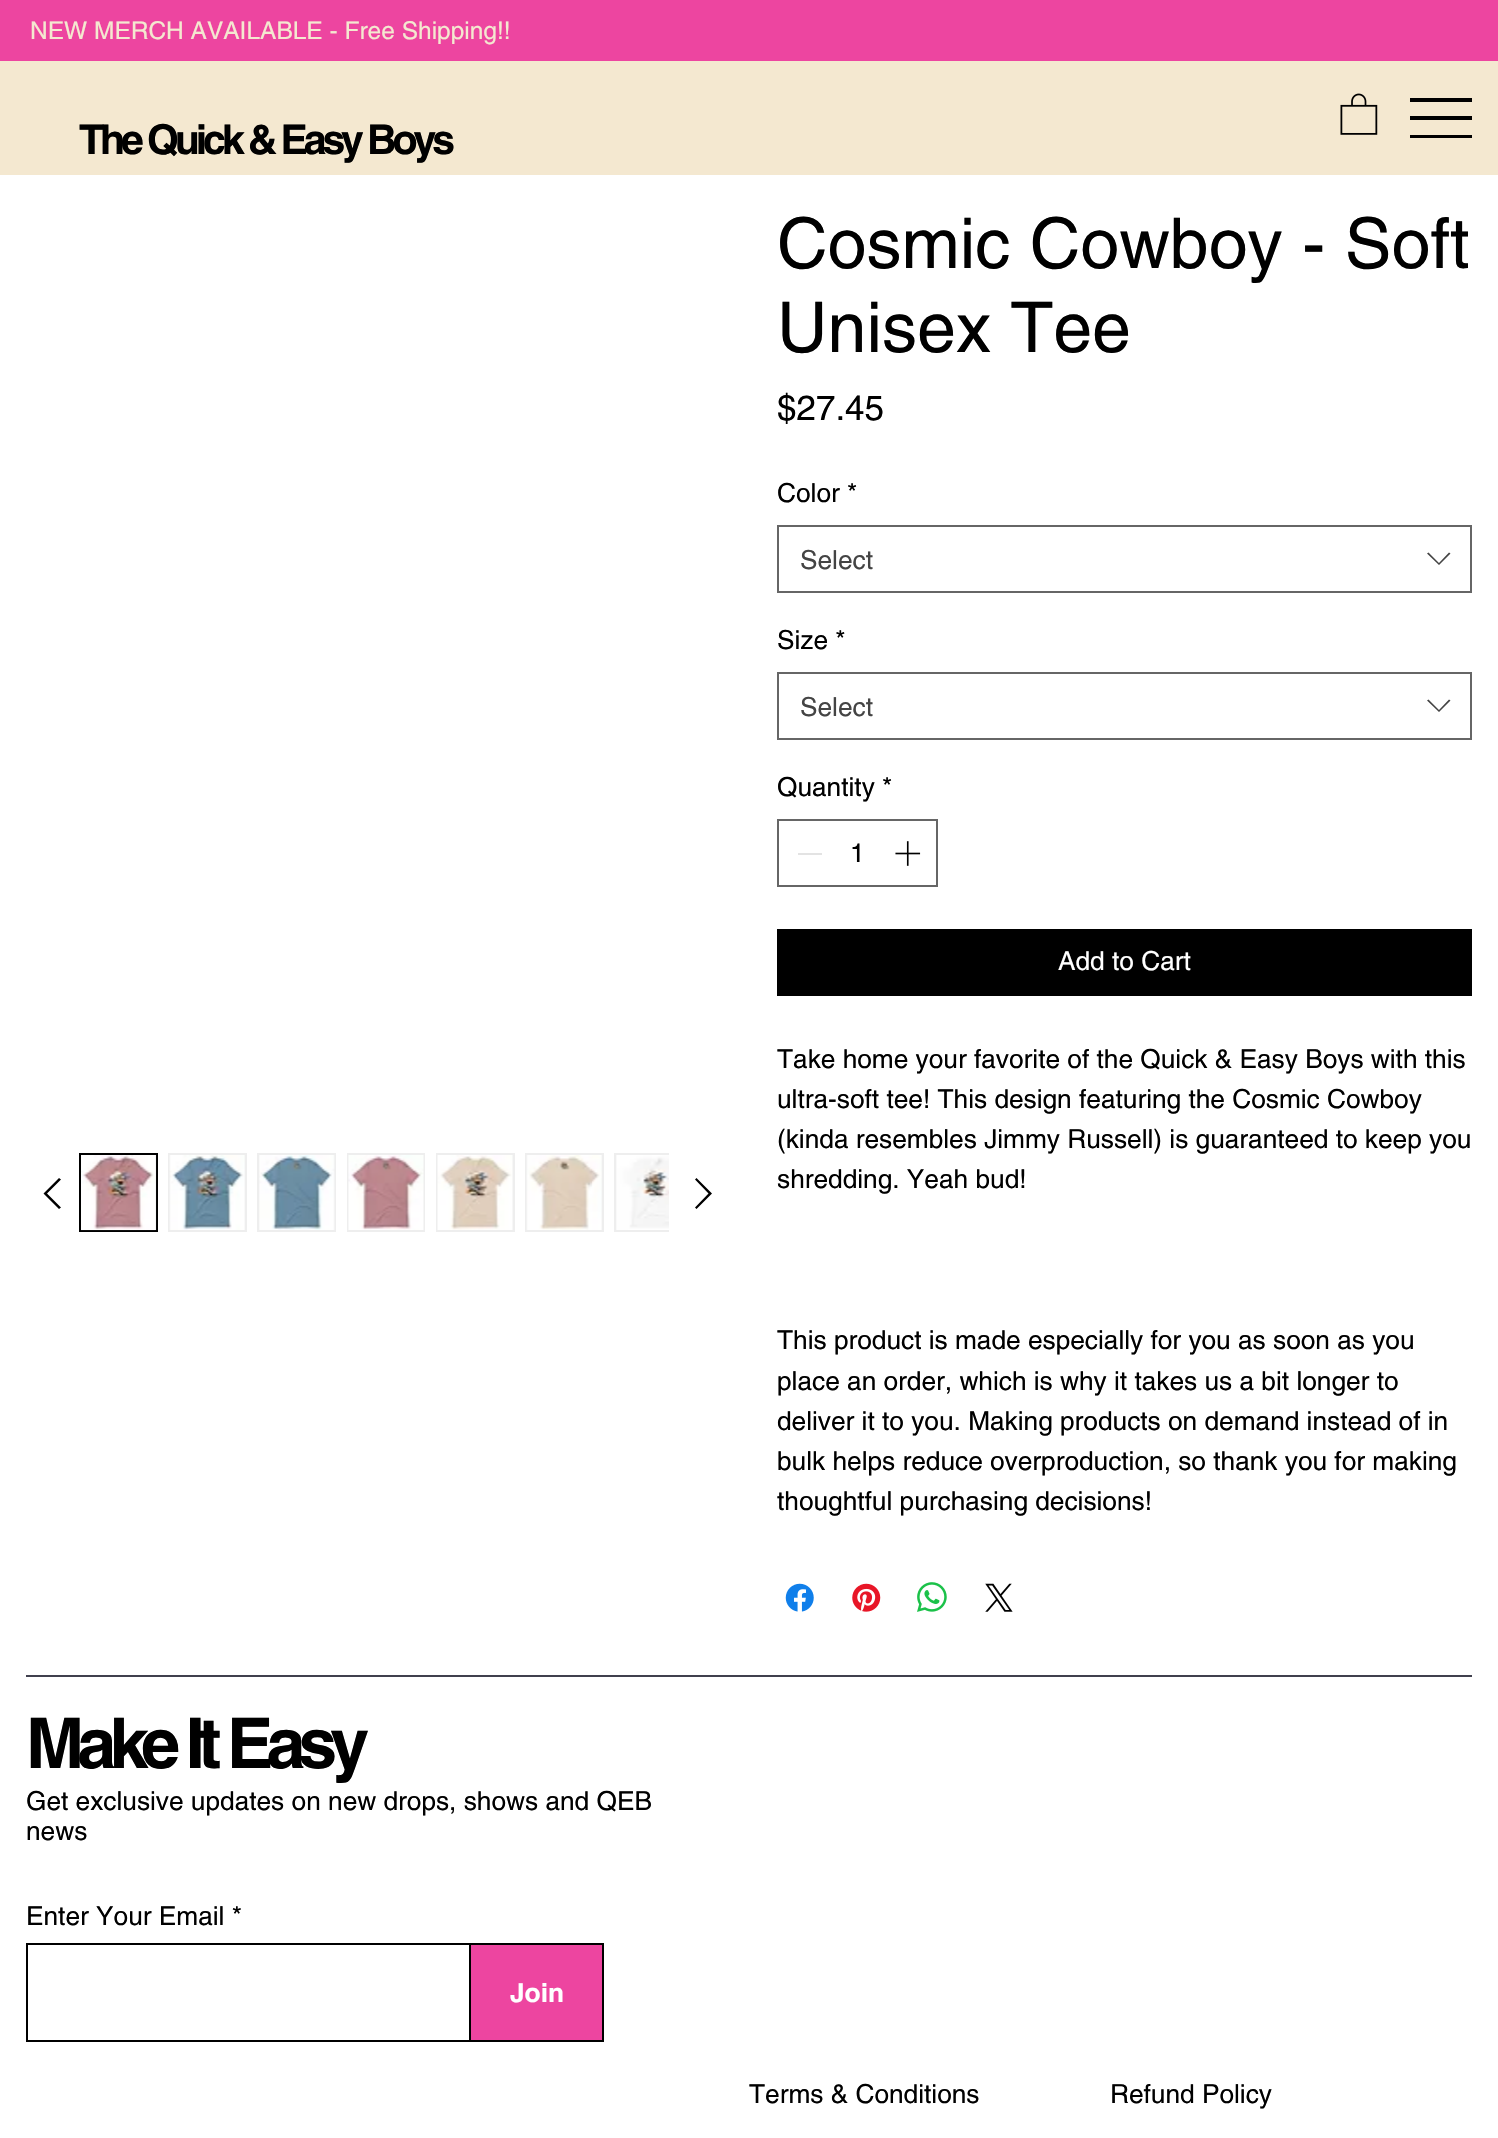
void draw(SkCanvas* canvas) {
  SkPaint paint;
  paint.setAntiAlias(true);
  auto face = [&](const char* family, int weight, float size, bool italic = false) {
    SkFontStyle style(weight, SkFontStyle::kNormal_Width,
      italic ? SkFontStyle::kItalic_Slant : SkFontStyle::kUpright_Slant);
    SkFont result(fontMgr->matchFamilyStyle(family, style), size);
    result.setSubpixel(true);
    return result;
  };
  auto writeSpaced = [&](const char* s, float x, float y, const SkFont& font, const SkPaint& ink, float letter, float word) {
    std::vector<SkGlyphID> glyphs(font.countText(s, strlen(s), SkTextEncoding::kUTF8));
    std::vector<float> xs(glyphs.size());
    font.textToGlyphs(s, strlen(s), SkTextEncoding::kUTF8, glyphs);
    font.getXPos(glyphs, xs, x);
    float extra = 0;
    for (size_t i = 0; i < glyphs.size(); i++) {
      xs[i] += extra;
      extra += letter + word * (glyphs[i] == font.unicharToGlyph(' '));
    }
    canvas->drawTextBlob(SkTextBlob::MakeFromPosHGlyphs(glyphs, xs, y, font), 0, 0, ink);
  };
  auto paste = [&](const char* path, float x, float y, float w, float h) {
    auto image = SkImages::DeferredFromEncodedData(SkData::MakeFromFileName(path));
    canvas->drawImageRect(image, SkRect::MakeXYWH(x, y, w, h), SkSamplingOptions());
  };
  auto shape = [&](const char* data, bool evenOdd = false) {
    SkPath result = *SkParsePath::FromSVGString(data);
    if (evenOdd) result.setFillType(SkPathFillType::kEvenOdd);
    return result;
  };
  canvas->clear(0xffffffff);
  paint.setColor(0xffed45a0);
  canvas->drawRect(SkRect::MakeXYWH(0, 0, 1498, 61), paint);
  paint.setColor(0xfff4e8d0);
  canvas->drawRect(SkRect::MakeXYWH(0, 61, 1498, 114), paint);
  paste("img/1.png", 1340, 93, 38, 42);
  {
    const struct { float x, y, w, h; SkColor color; } items[] = {
      {1410, 98, 62, 4, 0xff000000},
      {1410, 116, 62, 4, 0xff000000},
      {1410, 135, 62, 3, 0xff000000},
    };
    for (auto [x, y, w, h, color] : items) {
      paint.setColor(color);
      canvas->drawRect(SkRect::MakeXYWH(x, y, w, h), paint);
    }
  }
  canvas->drawPath(shape("M59 1178L61 1179.5L47 1193.5L61 1207.5L59 1209L43.5 1193.5Z", true), paint);
  paint.setColor(0xffeeeeee);
  canvas->drawRect(SkRect::MakeXYWH(155, 1155, 1, 75), paint);
  paint.setStroke(true);
  paint.setStrokeWidth(2);
  paint.setColor(0xff000000);
  canvas->drawRect(SkRect::MakeXYWH(80, 1154, 77, 77), paint);
  paste("img/2.png", 81, 1155, 76, 76);
  paint.setStroke(false);
  paint.setColor(0xffeeeeee);
  canvas->drawRect(SkRect::MakeXYWH(168, 1153, 79, 79), paint);
  paste("img/3.png", 169, 1155, 76, 75);
  canvas->drawRect(SkRect::MakeXYWH(257, 1153, 79, 79), paint);
  paste("img/4.png", 259, 1155, 76, 75);
  canvas->drawRect(SkRect::MakeXYWH(347, 1153, 78, 79), paint);
  paste("img/5.png", 348, 1155, 76, 75);
  canvas->drawRect(SkRect::MakeXYWH(436, 1153, 79, 79), paint);
  paste("img/6.png", 437, 1155, 76, 75);
  canvas->drawRect(SkRect::MakeXYWH(525, 1153, 79, 79), paint);
  paste("img/7.png", 526, 1155, 76, 75);
  canvas->drawRect(SkRect::MakeXYWH(614, 1153, 55, 79), paint);
  paste("img/8.png", 616, 1155, 53, 75);
  paint.setColor(0xff000000);
  canvas->drawPath(shape("M696.5 1178L712 1193.5L696.5 1209L695 1207.5L708.5 1193.5L695 1179.5Z", true), paint);
  paint.setStroke(true);
  paint.setColor(0xff666666);
  canvas->drawRect(SkRect::MakeXYWH(778, 526, 693, 66), paint);
  paint.setStroke(false);
  paint.setColor(0xff444444);
  canvas->drawPath(shape("M1449 552.5L1450.5 553.5L1439 565L1427 553.5L1428.5 552.5L1439 563Z", true), paint);
  paint.setStroke(true);
  paint.setColor(0xff666666);
  canvas->drawRect(SkRect::MakeXYWH(778, 673, 693, 66), paint);
  paint.setStroke(false);
  paint.setColor(0xff444444);
  canvas->drawPath(shape("M1449 699.5L1450.5 700.5L1439 712L1427 700.5L1428.5 699.5L1439 710Z", true), paint);
  paint.setStroke(true);
  paint.setColor(0xff666666);
  canvas->drawRect(SkRect::MakeXYWH(778, 820, 159, 66), paint);
  paint.setStroke(false);
  paint.setColor(0xffe3e3e3);
  canvas->drawRect(SkRect::MakeXYWH(798, 853, 24, 2), paint);
  paste("img/9.png", 895, 841, 26, 25);
  paint.setColor(0xff000000);
  canvas->drawRect(SkRect::MakeXYWH(777, 929, 695, 67), paint);
  paste("img/10.png", 785, 1583, 29, 29);
  paste("img/11.png", 852, 1583, 29, 29);
  paste("img/12.png", 917, 1582, 30, 30);
  paste("img/13.png", 985, 1583, 28, 29);
  paint.setColor(0xff40404e);
  canvas->drawRect(SkRect::MakeXYWH(26, 1675, 1446, 2), paint);
  paint.setStroke(true);
  paint.setColor(0xff000000);
  canvas->drawRect(SkRect::MakeXYWH(27, 1944, 443, 97), paint);
  paint.setStroke(false);
  paint.setColor(0xffed45a0);
  canvas->drawRect(SkRect::MakeXYWH(470, 1944, 133, 97), paint);
  paint.setStroke(true);
  paint.setColor(0xff000000);
  canvas->drawRect(SkRect::MakeXYWH(470, 1944, 133, 97), paint);
  auto f0 = face("helvetica", 400, 24.5f);
  paint.setStroke(false);
  paint.setColor(0xfff4e8d0);
  canvas->drawString("NEW MERCH AVAILABLE - Free Shipping!!", 30, 39, f0, paint);
  auto f1 = face("helvetica", 700, 41);
  paint.setColor(0xff000000);
  writeSpaced("The Quick & Easy Boys", 79, 154, f1, paint, -4.1f, 0);
  auto f2 = face("helvetica", 400, 70);
  canvas->drawString("Cosmic Cowboy - Soft", 777, 268, f2, paint);
  canvas->drawString("Unisex Tee", 777, 352, f2, paint);
  auto f3 = face("helvetica", 400, 35);
  canvas->drawString("$27.45", 777, 420, f3, paint);
  auto f4 = face("helvetica", 400, 26.25f);
  canvas->drawString("Color *", 777, 502, f4, paint);
  paint.setColor(0xff444444);
  canvas->drawString("Select", 800, 569, f4, paint);
  paint.setColor(0xff000000);
  canvas->drawString("Size *", 777, 649, f4, paint);
  paint.setColor(0xff444444);
  canvas->drawString("Select", 800, 716, f4, paint);
  paint.setColor(0xff000000);
  canvas->drawString("Quantity *", 777, 796, f4, paint);
  canvas->drawString("1", 850, 862, f4, paint);
  paint.setColor(0xffffffff);
  canvas->drawString("Add to Cart", 1058, 970, f4, paint);
  paint.setColor(0xff000000);
  {
    const struct { const char* s; float x, y; } items[] = {
      {"Take home your favorite of the Quick & Easy Boys with this", 777, 1068},
      {"ultra-soft tee! This design featuring the Cosmic Cowboy", 777, 1108},
      {"(kinda resembles Jimmy Russell) is guaranteed to keep you", 777, 1148},
      {"shredding. Yeah bud!", 777, 1188},
      {"This product is made especially for you as soon as you", 777, 1349},
      {"place an order, which is why it takes us a bit longer to", 777, 1390},
      {"deliver it to you. Making products on demand instead of in", 777, 1430},
      {"bulk helps reduce overproduction, so thank you for making", 777, 1470},
      {"thoughtful purchasing decisions!", 777, 1510},
    };
    for (auto [s, x, y] : items) {
      canvas->drawString(s, x, y, f4, paint);
    }
  }
  auto f5 = face("helvetica", 700, 70);
  writeSpaced("Make It Easy", 26, 1768, f5, paint, -7, 0);
  {
    const struct { const char* s; float x, y; } items[] = {
      {"Get exclusive updates on new drops, shows and QEB", 26, 1810},
      {"news", 26, 1840},
      {"Enter Your Email *", 26, 1925},
    };
    for (auto [s, x, y] : items) {
      canvas->drawString(s, x, y, f4, paint);
    }
  }
  auto f6 = face("helvetica", 700, 26.25f);
  paint.setColor(0xffffffff);
  canvas->drawString("Join", 510, 2002, f6, paint);
  paint.setColor(0xff000000);
  canvas->drawString("Terms & Conditions", 749, 2103, f4, paint);
  canvas->drawString("Refund Policy", 1110, 2103, f4, paint);
}
